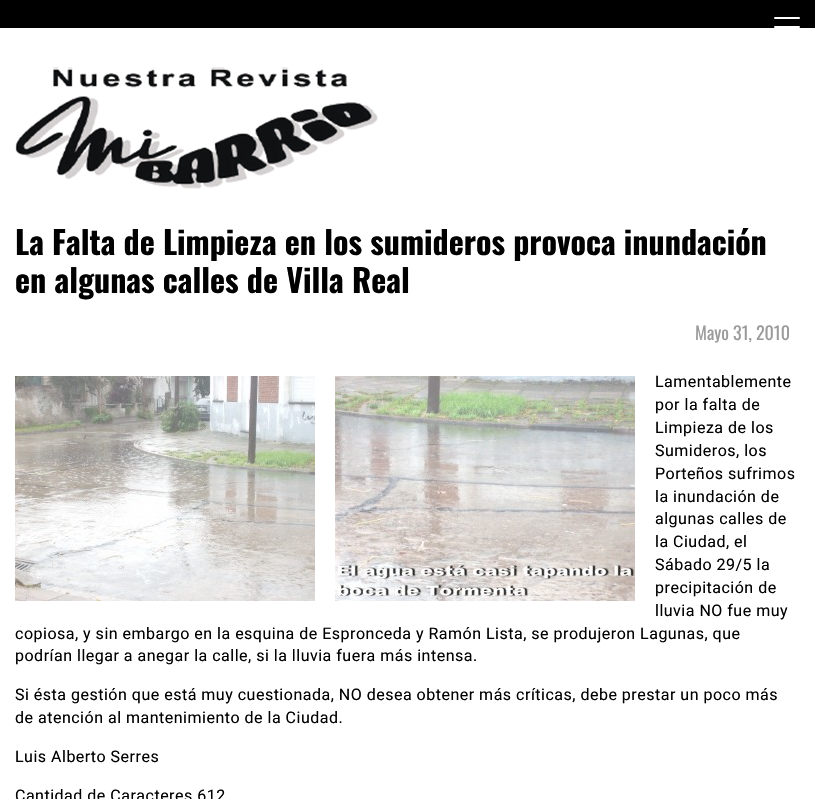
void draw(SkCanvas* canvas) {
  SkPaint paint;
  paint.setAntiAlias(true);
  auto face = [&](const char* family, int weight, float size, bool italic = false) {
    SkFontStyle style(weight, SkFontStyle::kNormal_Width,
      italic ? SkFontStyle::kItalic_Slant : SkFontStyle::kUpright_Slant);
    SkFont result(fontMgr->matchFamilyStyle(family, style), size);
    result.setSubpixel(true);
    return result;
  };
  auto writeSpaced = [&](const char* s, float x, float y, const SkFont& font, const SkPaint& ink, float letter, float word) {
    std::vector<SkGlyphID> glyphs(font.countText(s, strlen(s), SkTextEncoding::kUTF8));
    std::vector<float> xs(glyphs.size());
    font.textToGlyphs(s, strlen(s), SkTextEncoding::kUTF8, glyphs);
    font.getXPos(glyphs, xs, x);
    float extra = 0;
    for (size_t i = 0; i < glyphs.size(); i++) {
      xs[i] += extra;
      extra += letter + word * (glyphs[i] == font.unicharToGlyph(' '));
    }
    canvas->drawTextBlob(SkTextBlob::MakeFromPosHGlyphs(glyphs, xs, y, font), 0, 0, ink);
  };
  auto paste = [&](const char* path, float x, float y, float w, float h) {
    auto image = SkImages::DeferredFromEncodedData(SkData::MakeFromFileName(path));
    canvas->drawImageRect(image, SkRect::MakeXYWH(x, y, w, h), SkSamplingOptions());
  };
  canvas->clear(0xffffffff);
  paint.setColor(0xff000000);
  canvas->drawRect(SkRect::MakeXYWH(0, 0, 815, 28), paint);
  paint.setColor(0xffffffff);
  canvas->drawRoundRect(SkRect::MakeXYWH(774, 26, 26, 2), 1, 1, paint);
  canvas->drawRoundRect(SkRect::MakeXYWH(774, 17, 26, 2), 1, 1, paint);
  paste("img/1.png", 15, 67, 363, 122);
  paste("img/2.png", 15, 376, 300, 225);
  paste("img/3.png", 335, 376, 300, 225);
  auto f0 = face("Oswald", 700, 32);
  paint.setColor(0xff000000);
  canvas->drawString("La Falta de Limpieza en los sumideros provoca inundación", 15, 255, f0, paint);
  canvas->drawString("en algunas calles de Villa Real", 15, 293, f0, paint);
  auto f1 = face("Oswald", 400, 18);
  paint.setColor(0xff9b9b9b);
  canvas->drawString("Mayo 31, 2010", 695, 340, f1, paint);
  auto f2 = face("Roboto", 400, 16);
  paint.setColor(0xff000000);
  {
    const struct { const char* s; float x, y; } items[] = {
      {"Lamentablemente", 655, 387},
      {"por la falta de", 655, 410},
      {"Limpieza de los", 655, 433},
      {"Sumideros, los", 655, 456},
      {"Porteños sufrimos", 655, 479},
      {"la inundación de", 655, 502},
      {"algunas calles de", 655, 524},
      {"la Ciudad, el", 655, 547},
      {"Sábado 29/5 la", 655, 570},
      {"precipitación de", 655, 593},
      {"lluvia NO fue muy", 655, 616},
      {"copiosa, y sin embargo en la esquina de Espronceda y Ramón Lista, se produjeron Lagunas, que", 15, 639},
      {"podrían llegar a anegar la calle, si la lluvia fuera más intensa.", 15, 661},
      {"Si ésta gestión que está muy cuestionada, NO desea obtener más críticas, debe prestar un poco más", 15, 700},
      {"de atención al mantenimiento de la Ciudad.", 15, 723},
      {"Luis Alberto Serres", 15, 762},
      {"Cantidad de Caracteres 612", 15, 801},
    };
    for (auto [s, x, y] : items) {
      writeSpaced(s, x, y, f2, paint, 0.5f, 0);
    }
  }
}
